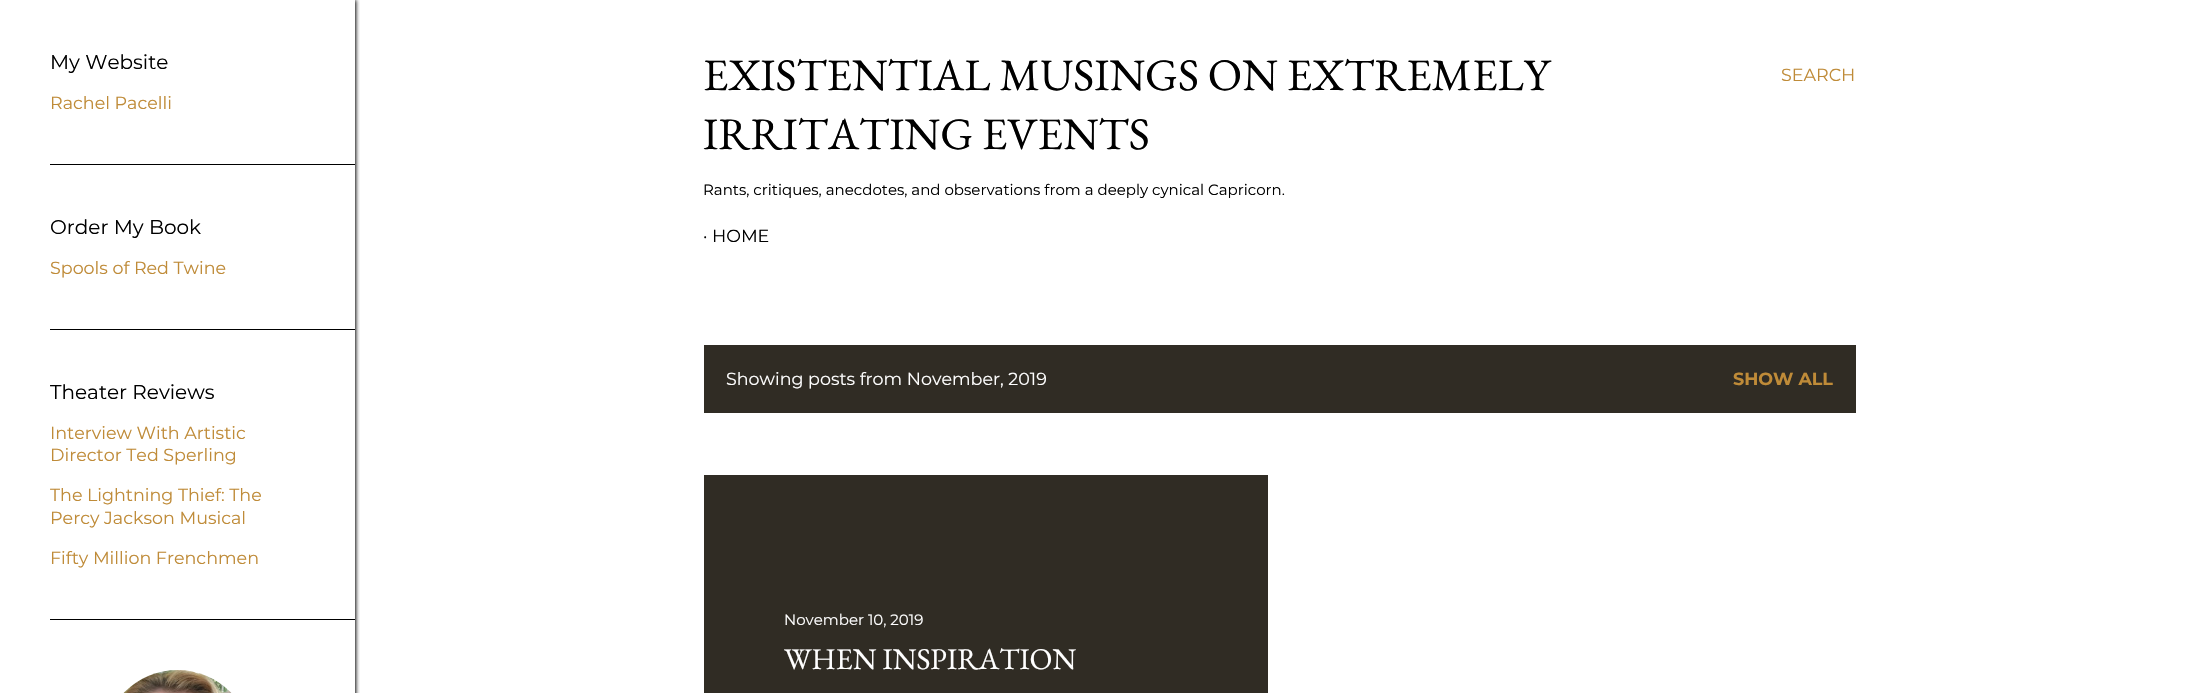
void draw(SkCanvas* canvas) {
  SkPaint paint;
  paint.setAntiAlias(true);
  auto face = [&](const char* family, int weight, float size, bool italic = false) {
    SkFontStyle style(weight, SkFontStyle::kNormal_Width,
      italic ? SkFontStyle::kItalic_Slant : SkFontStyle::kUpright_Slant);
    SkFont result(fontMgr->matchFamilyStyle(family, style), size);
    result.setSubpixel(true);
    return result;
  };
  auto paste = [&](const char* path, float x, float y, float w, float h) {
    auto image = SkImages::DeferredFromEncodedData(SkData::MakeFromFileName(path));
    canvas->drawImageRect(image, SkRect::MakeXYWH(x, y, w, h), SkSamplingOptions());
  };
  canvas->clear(0xffffffff);
  canvas->save();
  canvas->clipRect(SkRect::MakeXYWH(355, 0, 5, 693));
  paint.setColor(0xff000000);
  paint.setMaskFilter(SkMaskFilter::MakeBlur(kNormal_SkBlurStyle, 2));
  canvas->drawRect(SkRect::MakeXYWH(1, 0, 355, 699), paint);
  paint.setMaskFilter(nullptr);
  canvas->restore();
  {
    const struct { float x, y, w, h; SkColor color; } items[] = {
      {50, 164, 305, 1, 0xff000000},
      {50, 329, 305, 1, 0xff000000},
      {50, 619, 305, 1, 0xff000000},
    };
    for (auto [x, y, w, h, color] : items) {
      paint.setColor(color);
      canvas->drawRect(SkRect::MakeXYWH(x, y, w, h), paint);
    }
  }
  paste("img/1.png", 123, 670, 109, 23);
  paint.setColor(0xff302c24);
  canvas->drawRect(SkRect::MakeXYWH(704, 345, 1152, 68), paint);
  canvas->drawRect(SkRect::MakeXYWH(704, 475, 564, 218), paint);
  auto f0 = face("Montserrat", 400, 20);
  paint.setColor(0xff000000);
  canvas->drawString("My Website", 50, 69, f0, paint);
  auto f1 = face("Montserrat", 400, 17.5f);
  paint.setColor(0xffbf8b38);
  canvas->drawString("Rachel Pacelli", 50, 109, f1, paint);
  paint.setColor(0xff000000);
  canvas->drawString("Order My Book", 50, 234, f0, paint);
  paint.setColor(0xffbf8b38);
  canvas->drawString("Spools of Red Twine", 50, 274, f1, paint);
  paint.setColor(0xff000000);
  canvas->drawString("Theater Reviews", 50, 399, f0, paint);
  paint.setColor(0xffbf8b38);
  {
    const struct { const char* s; float x, y; } items[] = {
      {"Interview With Artistic", 50, 439},
      {"Director Ted Sperling", 50, 461},
      {"The Lightning Thief: The", 50, 501},
      {"Percy Jackson Musical", 50, 524},
      {"Fifty Million Frenchmen", 50, 564},
    };
    for (auto [s, x, y] : items) {
      canvas->drawString(s, x, y, f1, paint);
    }
  }
  auto f2 = face("EB Garamond", 400, 45);
  paint.setColor(0xff000000);
  canvas->drawString("EXISTENTIAL MUSINGS ON EXTREMELY", 703, 90, f2, paint);
  canvas->drawString("IRRITATING EVENTS", 703, 149, f2, paint);
  auto f3 = face("Montserrat", 400, 15);
  canvas->drawString("Rants, critiques, anecdotes, and observations from a deeply cynical Capricorn.", 703, 195, f3, paint);
  canvas->drawString("· HOME", 703, 242, f1, paint);
  paint.setColor(0xffbf8b38);
  canvas->drawString("SEARCH", 1781, 81, f1, paint);
  paint.setColor(0xffffffff);
  canvas->drawString("Showing posts from November, 2019", 726, 385, f1, paint);
  auto f4 = face("Montserrat", 700, 17.5f);
  paint.setColor(0xffbf8b38);
  canvas->drawString("SHOW ALL", 1733, 385, f4, paint);
  paint.setColor(0xffffffff);
  canvas->drawString("November 10, 2019", 784, 625, f3, paint);
  auto f5 = face("EB Garamond", 400, 30);
  canvas->drawString("WHEN INSPIRATION", 784, 669, f5, paint);
}
